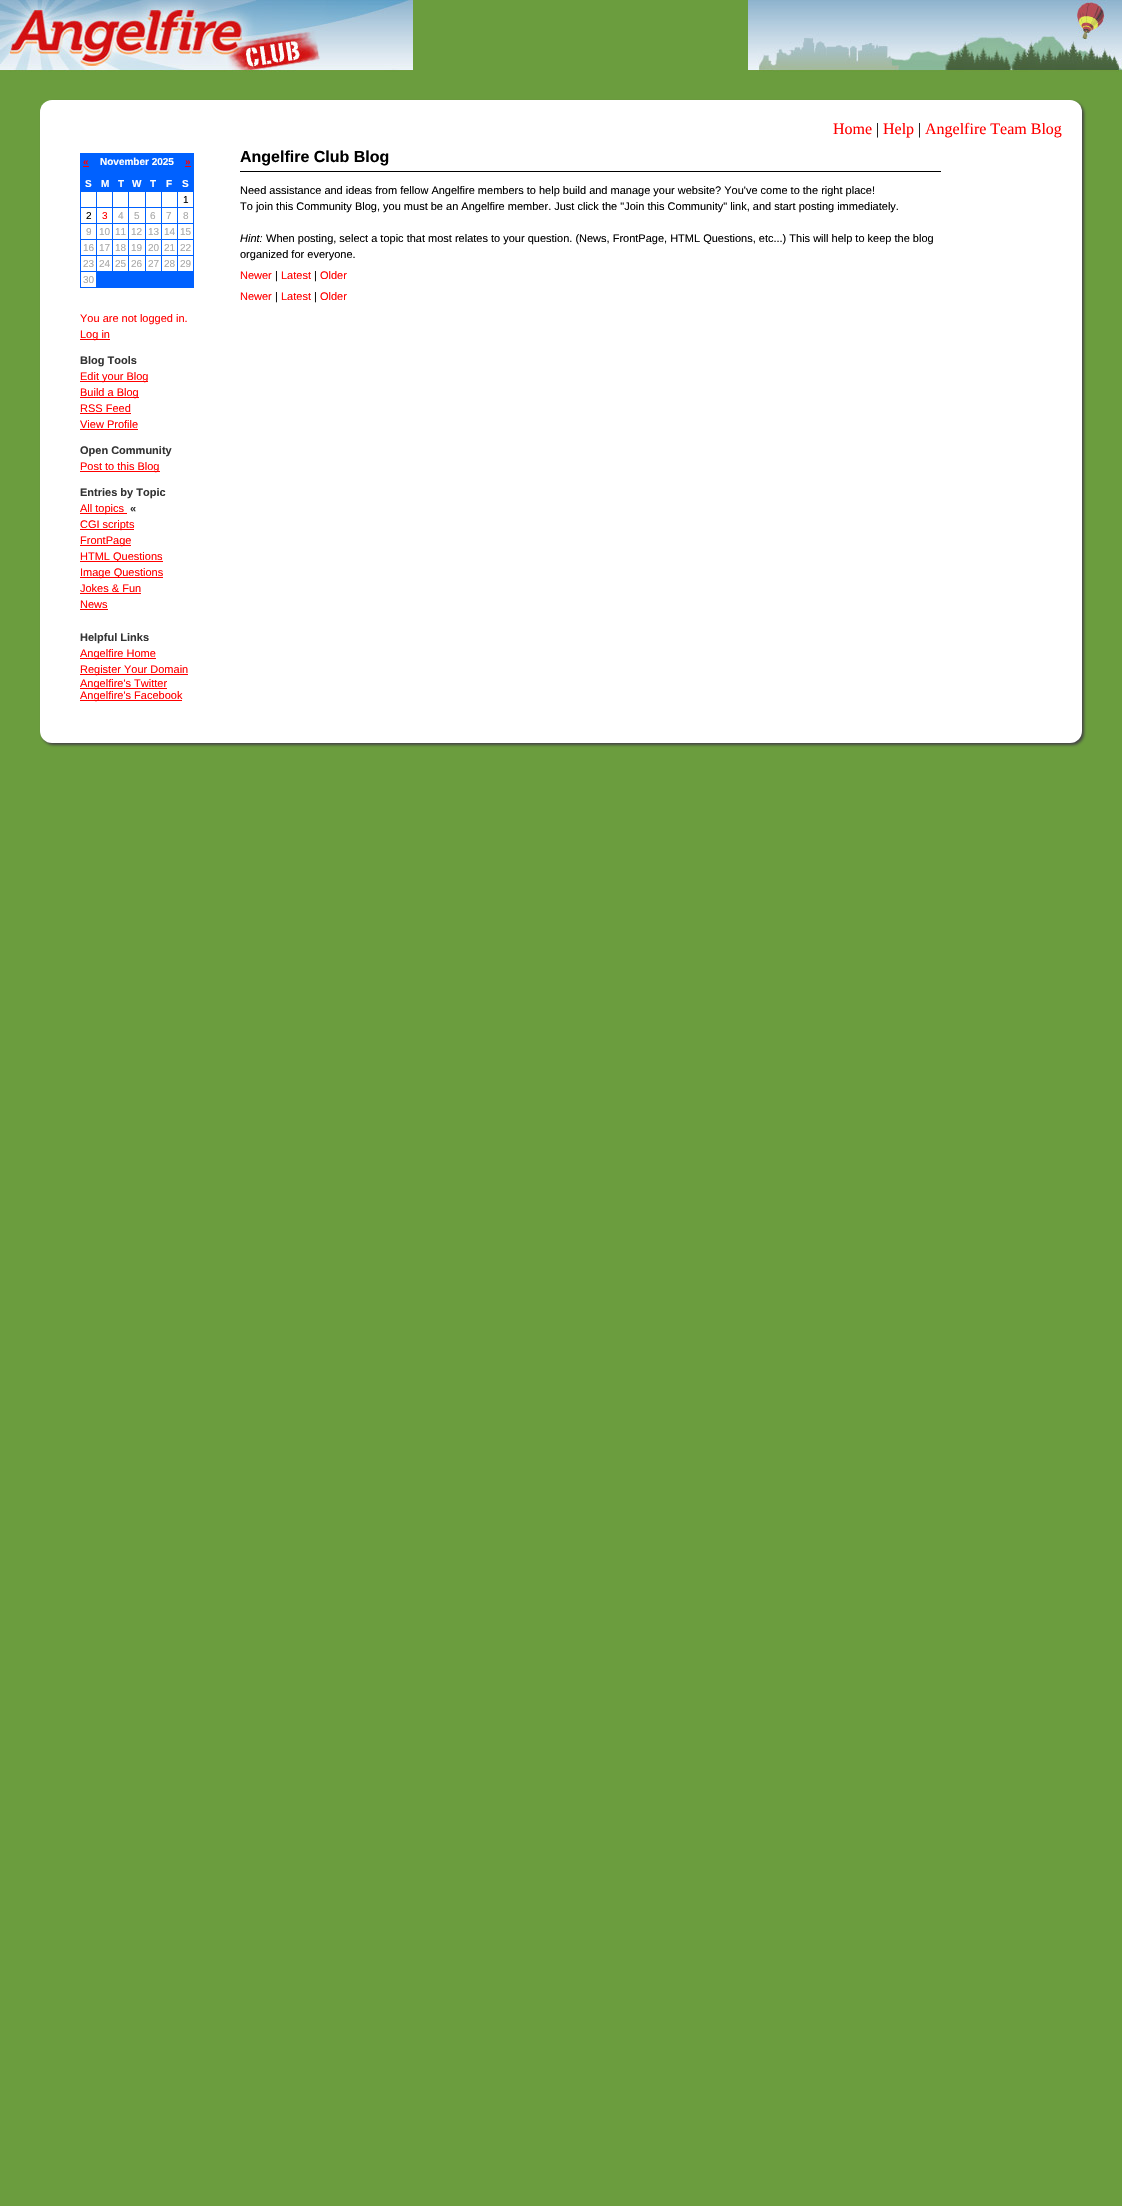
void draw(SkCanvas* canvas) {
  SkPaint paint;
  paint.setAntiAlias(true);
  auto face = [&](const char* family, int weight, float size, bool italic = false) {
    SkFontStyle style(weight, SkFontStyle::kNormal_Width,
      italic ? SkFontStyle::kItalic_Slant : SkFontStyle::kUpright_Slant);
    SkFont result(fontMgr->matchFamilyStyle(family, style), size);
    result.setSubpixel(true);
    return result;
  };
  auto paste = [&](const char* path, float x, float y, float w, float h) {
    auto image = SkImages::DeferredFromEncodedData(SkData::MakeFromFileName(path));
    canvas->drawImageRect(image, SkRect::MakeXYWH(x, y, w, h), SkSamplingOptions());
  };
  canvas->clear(0xff6b9d3e);
  paste("img/1.png", 748, 0, 374, 72);
  paste("img/2.png", 0, 0, 413, 72);
  paint.setColor(0xff444444);
  paint.setMaskFilter(SkMaskFilter::MakeBlur(kNormal_SkBlurStyle, 1.5f));
  canvas->drawRoundRect(SkRect::MakeXYWH(42, 102, 1042, 643), 12, 12, paint);
  paint.setMaskFilter(nullptr);
  paint.setColor(0xffffffff);
  canvas->drawRoundRect(SkRect::MakeXYWH(40, 100, 1042, 643), 12, 12, paint);
  {
    const struct { float x, y, w, h; SkColor color; } items[] = {
      {80, 153, 114, 135, 0xff0061ff},
      {83, 166, 6, 1, 0xffff0000},
      {185, 166, 6, 1, 0xffff0000},
      {81, 192, 15, 15, 0xffffffff},
      {97, 192, 15, 15, 0xffffffff},
      {113, 192, 15, 15, 0xffffffff},
      {129, 192, 16, 15, 0xffffffff},
      {146, 192, 15, 15, 0xffffffff},
      {162, 192, 15, 15, 0xffffffff},
      {178, 192, 15, 15, 0xffffffff},
      {81, 208, 15, 15, 0xffffffff},
      {97, 208, 15, 15, 0xffffffff},
      {113, 208, 15, 15, 0xffffffff},
      {129, 208, 16, 15, 0xffffffff},
      {146, 208, 15, 15, 0xffffffff},
      {162, 208, 15, 15, 0xffffffff},
      {178, 208, 15, 15, 0xffffffff},
      {81, 224, 15, 15, 0xffffffff},
      {97, 224, 15, 15, 0xffffffff},
      {113, 224, 15, 15, 0xffffffff},
      {129, 224, 16, 15, 0xffffffff},
      {146, 224, 15, 15, 0xffffffff},
      {162, 224, 15, 15, 0xffffffff},
      {178, 224, 15, 15, 0xffffffff},
      {81, 240, 15, 15, 0xffffffff},
      {97, 240, 15, 15, 0xffffffff},
      {113, 240, 15, 15, 0xffffffff},
      {129, 240, 16, 15, 0xffffffff},
      {146, 240, 15, 15, 0xffffffff},
      {162, 240, 15, 15, 0xffffffff},
      {178, 240, 15, 15, 0xffffffff},
      {81, 256, 15, 15, 0xffffffff},
      {97, 256, 15, 15, 0xffffffff},
      {113, 256, 15, 15, 0xffffffff},
      {129, 256, 16, 15, 0xffffffff},
      {146, 256, 15, 15, 0xffffffff},
      {162, 256, 15, 15, 0xffffffff},
      {178, 256, 15, 15, 0xffffffff},
      {81, 272, 15, 15, 0xffffffff},
      {80, 339, 30, 1, 0xffff0000},
      {80, 381, 68, 1, 0xffff0000},
      {80, 397, 59, 1, 0xffff0000},
      {80, 413, 51, 1, 0xffff0000},
      {80, 429, 58, 1, 0xffff0000},
      {80, 471, 80, 1, 0xffff0000},
      {80, 513, 47, 1, 0xffff0000},
      {80, 529, 54, 1, 0xffff0000},
      {80, 545, 51, 1, 0xffff0000},
      {80, 561, 83, 1, 0xffff0000},
      {80, 577, 83, 1, 0xffff0000},
      {80, 593, 61, 1, 0xffff0000},
      {80, 609, 28, 1, 0xffff0000},
      {80, 658, 76, 1, 0xffff0000},
      {80, 674, 108, 1, 0xffff0000},
      {80, 688, 87, 1, 0xffff0000},
      {80, 700, 102, 1, 0xffff0000},
      {240, 171, 701, 1, 0xff000000},
    };
    for (auto [x, y, w, h, color] : items) {
      paint.setColor(color);
      canvas->drawRect(SkRect::MakeXYWH(x, y, w, h), paint);
    }
  }
  auto f0 = face("Liberation Serif", 400, 16);
  paint.setColor(0xffff0000);
  canvas->drawString("Home", 833, 134, f0, paint);
  paint.setColor(0xff000000);
  canvas->drawString("|", 876, 134, f0, paint);
  paint.setColor(0xffff0000);
  canvas->drawString("Help", 883, 134, f0, paint);
  paint.setColor(0xff000000);
  canvas->drawString("|", 918, 134, f0, paint);
  paint.setColor(0xffff0000);
  canvas->drawString("Angelfire Team Blog", 925, 134, f0, paint);
  auto f1 = face("Liberation Sans", 700, 10);
  canvas->drawString("«", 83, 165, f1, paint);
  paint.setColor(0xffffffff);
  canvas->drawString("November 2025", 100, 165, f1, paint);
  paint.setColor(0xffff0000);
  canvas->drawString("»", 185, 165, f1, paint);
  paint.setColor(0xffffffff);
  {
    const struct { const char* s; float x, y; } items[] = {
      {"S", 85, 187},
      {"M", 101, 187},
      {"T", 118, 187},
      {"W", 132, 187},
      {"T", 150, 187},
      {"F", 166, 187},
      {"S", 182, 187},
    };
    for (auto [s, x, y] : items) {
      canvas->drawString(s, x, y, f1, paint);
    }
  }
  auto f2 = face("Liberation Sans", 400, 10);
  paint.setColor(0xff000000);
  canvas->drawString("1", 183, 203, f2, paint);
  canvas->drawString("2", 86, 219, f2, paint);
  paint.setColor(0xffff0000);
  canvas->drawString("3", 102, 219, f2, paint);
  paint.setColor(0xffaaaaaa);
  {
    const struct { const char* s; float x, y; } items[] = {
      {"4", 118, 219},
      {"5", 134, 219},
      {"6", 150, 219},
      {"7", 166, 219},
      {"8", 183, 219},
      {"9", 86, 235},
      {"10", 99, 235},
      {"11", 115, 235},
      {"12", 131, 235},
      {"13", 148, 235},
      {"14", 164, 235},
      {"15", 180, 235},
      {"16", 83, 251},
      {"17", 99, 251},
      {"18", 115, 251},
      {"19", 131, 251},
      {"20", 148, 251},
      {"21", 164, 251},
      {"22", 180, 251},
      {"23", 83, 267},
      {"24", 99, 267},
      {"25", 115, 267},
      {"26", 131, 267},
      {"27", 148, 267},
      {"28", 164, 267},
      {"29", 180, 267},
      {"30", 83, 283},
    };
    for (auto [s, x, y] : items) {
      canvas->drawString(s, x, y, f2, paint);
    }
  }
  auto f3 = face("Liberation Sans", 400, 11);
  paint.setColor(0xffff0000);
  canvas->drawString("You are not logged in.", 80, 322, f3, paint);
  canvas->drawString("Log in", 80, 338, f3, paint);
  auto f4 = face("Liberation Sans", 700, 11);
  paint.setColor(0xff333333);
  canvas->drawString("Blog Tools", 80, 364, f4, paint);
  paint.setColor(0xffff0000);
  {
    const struct { const char* s; float x, y; } items[] = {
      {"Edit your Blog", 80, 380},
      {"Build a Blog", 80, 396},
      {"RSS Feed", 80, 412},
      {"View Profile", 80, 428},
    };
    for (auto [s, x, y] : items) {
      canvas->drawString(s, x, y, f3, paint);
    }
  }
  paint.setColor(0xff333333);
  canvas->drawString("Open Community", 80, 454, f4, paint);
  paint.setColor(0xffff0000);
  canvas->drawString("Post to this Blog", 80, 470, f3, paint);
  paint.setColor(0xff333333);
  canvas->drawString("Entries by Topic", 80, 496, f4, paint);
  paint.setColor(0xffff0000);
  canvas->drawString("All topics", 80, 512, f3, paint);
  paint.setColor(0xff333333);
  canvas->drawString("«", 130, 512, f4, paint);
  paint.setColor(0xffff0000);
  {
    const struct { const char* s; float x, y; } items[] = {
      {"CGI scripts", 80, 528},
      {"FrontPage", 80, 544},
      {"HTML Questions", 80, 560},
      {"Image Questions", 80, 576},
      {"Jokes & Fun", 80, 592},
      {"News", 80, 608},
    };
    for (auto [s, x, y] : items) {
      canvas->drawString(s, x, y, f3, paint);
    }
  }
  paint.setColor(0xff333333);
  canvas->drawString("Helpful Links", 80, 641, f4, paint);
  paint.setColor(0xffff0000);
  {
    const struct { const char* s; float x, y; } items[] = {
      {"Angelfire Home", 80, 657},
      {"Register Your Domain", 80, 673},
      {"Angelfire's Twitter", 80, 687},
      {"Angelfire's Facebook", 80, 699},
    };
    for (auto [s, x, y] : items) {
      canvas->drawString(s, x, y, f3, paint);
    }
  }
  auto f5 = face("Liberation Sans", 700, 16);
  paint.setColor(0xff000000);
  canvas->drawString("Angelfire Club Blog", 240, 162, f5, paint);
  canvas->drawString("Need assistance and ideas from fellow Angelfire members to help build and manage your website? You've come to the right place!", 240, 194, f3, paint);
  canvas->drawString("To join this Community Blog, you must be an Angelfire member. Just click the \"Join this Community\" link, and start posting immediately.", 240, 210, f3, paint);
  auto f6 = face("Liberation Sans", 400, 11, true);
  canvas->drawString("Hint:", 240, 242, f6, paint);
  canvas->drawString("When posting, select a topic that most relates to your question. (News, FrontPage, HTML Questions, etc...) This will help to keep the blog", 266, 242, f3, paint);
  canvas->drawString("organized for everyone.", 240, 258, f3, paint);
  paint.setColor(0xffff0000);
  canvas->drawString("Newer", 240, 279, f3, paint);
  paint.setColor(0xff000000);
  canvas->drawString("|", 275, 279, f3, paint);
  paint.setColor(0xffff0000);
  canvas->drawString("Latest", 281, 279, f3, paint);
  paint.setColor(0xff000000);
  canvas->drawString("|", 314, 279, f3, paint);
  paint.setColor(0xffff0000);
  canvas->drawString("Older", 320, 279, f3, paint);
  canvas->drawString("Newer", 240, 300, f3, paint);
  paint.setColor(0xff000000);
  canvas->drawString("|", 275, 300, f3, paint);
  paint.setColor(0xffff0000);
  canvas->drawString("Latest", 281, 300, f3, paint);
  paint.setColor(0xff000000);
  canvas->drawString("|", 314, 300, f3, paint);
  paint.setColor(0xffff0000);
  canvas->drawString("Older", 320, 300, f3, paint);
}
